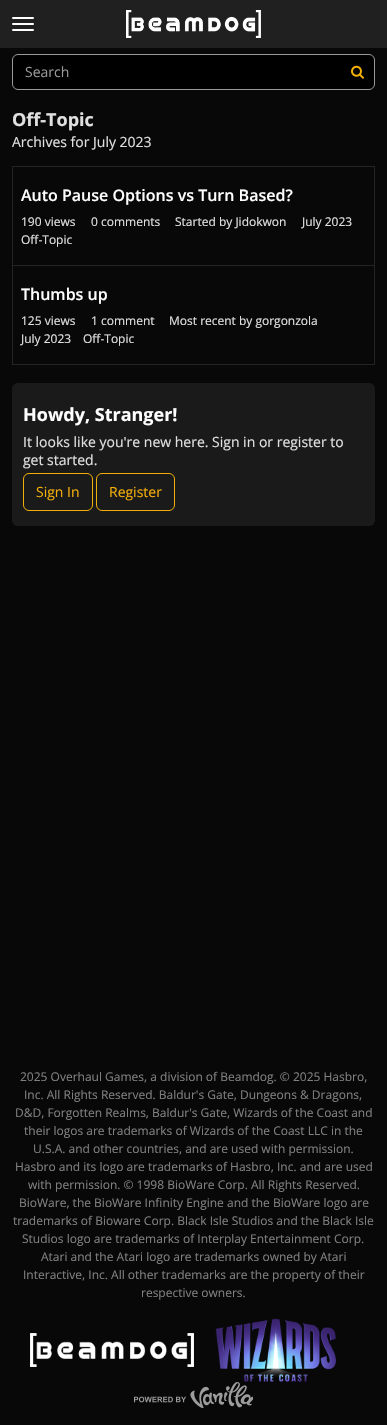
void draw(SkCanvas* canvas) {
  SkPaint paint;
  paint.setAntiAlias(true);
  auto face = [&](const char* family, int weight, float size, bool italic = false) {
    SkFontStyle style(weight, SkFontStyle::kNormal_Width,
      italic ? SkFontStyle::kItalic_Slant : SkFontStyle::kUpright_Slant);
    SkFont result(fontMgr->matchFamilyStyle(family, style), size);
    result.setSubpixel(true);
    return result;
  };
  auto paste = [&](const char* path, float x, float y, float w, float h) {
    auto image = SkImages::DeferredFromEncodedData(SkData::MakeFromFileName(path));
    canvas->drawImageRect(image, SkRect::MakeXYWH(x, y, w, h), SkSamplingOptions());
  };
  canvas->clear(0xff080808);
  paint.setColor(0xff1f201f);
  canvas->drawRect(SkRect::MakeXYWH(0, 0, 387, 48), paint);
  paint.setColor(0xffffffff);
  canvas->drawRoundRect(SkRect::MakeXYWH(12, 23, 22, 2), 1, 1, paint);
  canvas->drawRoundRect(SkRect::MakeXYWH(12, 17, 22, 2), 1, 1, paint);
  canvas->drawRoundRect(SkRect::MakeXYWH(12, 29, 22, 2), 1, 1, paint);
  paste("img/1.png", 126, 10, 135, 28);
  paint.setColor(0xff000000);
  canvas->drawRoundRect(SkRect::MakeXYWH(12.5f, 54.5f, 362, 35), 5.5f, 5.5f, paint);
  paint.setStroke(true);
  paint.setStrokeWidth(1);
  paint.setColor(0xff999999);
  canvas->drawRoundRect(SkRect::MakeXYWH(12.5f, 54.5f, 362, 35), 5.5f, 5.5f, paint);
  paste("img/2.png", 351, 65, 13, 14);
  paint.setStroke(false);
  {
    const struct { float x, y, w, h; SkColor color; } items[] = {
      {12, 166, 363, 1, 0xff242424},
      {374, 166, 1, 99, 0xff242424},
      {12, 166, 1, 99, 0xff242424},
    };
    for (auto [x, y, w, h, color] : items) {
      paint.setColor(color);
      canvas->drawRect(SkRect::MakeXYWH(x, y, w, h), paint);
    }
  }
  paint.setStroke(true);
  canvas->drawRect(SkRect::MakeXYWH(12.5f, 265.5f, 362, 99), paint);
  paint.setStroke(false);
  paint.setColor(0xff1a1a1a);
  canvas->drawRoundRect(SkRect::MakeXYWH(12, 383, 363, 143), 6, 6, paint);
  paint.setStroke(true);
  paint.setColor(0xfff2ae09);
  canvas->drawRoundRect(SkRect::MakeXYWH(23.5f, 473.5f, 69, 37), 5.5f, 5.5f, paint);
  canvas->drawRoundRect(SkRect::MakeXYWH(96.5f, 473.5f, 78, 37), 5.5f, 5.5f, paint);
  paste("img/3.png", 30, 1333, 164, 34);
  paste("img/4.png", 215, 1318, 121, 64);
  paste("img/5.png", 134, 1382, 119, 26);
  auto f0 = face("Open Sans", 400, 14);
  paint.setStroke(false);
  paint.setColor(0xff999999);
  canvas->drawString("Search", 25, 77, f0, paint);
  auto f1 = face("Open Sans", 700, 18);
  paint.setColor(0xffe0e0e0);
  canvas->drawString("Off-Topic", 12, 126, f1, paint);
  canvas->drawString("Archives for July 2023", 12, 147, f0, paint);
  auto f2 = face("Open Sans", 600, 16);
  paint.setColor(0xffffffff);
  canvas->drawString("Auto Pause Options vs Turn Based?", 21, 201, f2, paint);
  auto f3 = face("Open Sans", 400, 12);
  paint.setColor(0xffe0e0e0);
  {
    const struct { const char* s; float x, y; } items[] = {
      {"190 views", 21, 226},
      {"0 comments", 91, 226},
      {"Started by Jidokwon", 175, 226},
      {"July 2023", 302, 226},
      {"Off-Topic", 21, 244},
    };
    for (auto [s, x, y] : items) {
      canvas->drawString(s, x, y, f3, paint);
    }
  }
  paint.setColor(0xffffffff);
  canvas->drawString("Thumbs up", 21, 300, f2, paint);
  paint.setColor(0xffe0e0e0);
  {
    const struct { const char* s; float x, y; } items[] = {
      {"125 views", 21, 325},
      {"1 comment", 91, 325},
      {"Most recent by gorgonzola", 169, 325},
      {"July 2023", 21, 343},
      {"Off-Topic", 83, 343},
    };
    for (auto [s, x, y] : items) {
      canvas->drawString(s, x, y, f3, paint);
    }
  }
  paint.setColor(0xffffffff);
  canvas->drawString("Howdy, Stranger!", 23, 421, f1, paint);
  paint.setColor(0xffe0e0e0);
  canvas->drawString("It looks like you're new here. Sign in or register to", 23, 447, f0, paint);
  canvas->drawString("get started.", 23, 465, f0, paint);
  paint.setColor(0xfff2ae09);
  canvas->drawString("Sign In", 36, 497, f0, paint);
  canvas->drawString("Register", 109, 497, f0, paint);
  paint.setColor(0xff808080);
  {
    const struct { const char* s; float x, y; } items[] = {
      {"2025 Overhaul Games, a division of Beamdog. © 2025 Hasbro,", 20, 1081},
      {"Inc. All Rights Reserved. Baldur's Gate, Dungeons & Dragons,", 24, 1099},
      {"D&D, Forgotten Realms, Baldur's Gate, Wizards of the Coast and", 15, 1117},
      {"their logos are trademarks of Wizards of the Coast LLC in the", 24, 1135},
      {"U.S.A. and other countries, and are used with permission.", 33, 1153},
      {"Hasbro and its logo are trademarks of Hasbro, Inc. and are used", 15, 1171},
      {"with permission. © 1998 BioWare Corp. All Rights Reserved.", 28, 1189},
      {"BioWare, the BioWare Infinity Engine and the BioWare logo are", 19, 1207},
      {"trademarks of Bioware Corp. Black Isle Studios and the Black Isle", 13, 1225},
      {"Studios logo are trademarks of Interplay Entertainment Corp.", 22, 1243},
      {"Atari and the Atari logo are trademarks owned by Atari", 41, 1261},
      {"Interactive, Inc. All other trademarks are the property of their", 23, 1279},
      {"respective owners.", 141, 1297},
    };
    for (auto [s, x, y] : items) {
      canvas->drawString(s, x, y, f3, paint);
    }
  }
}
